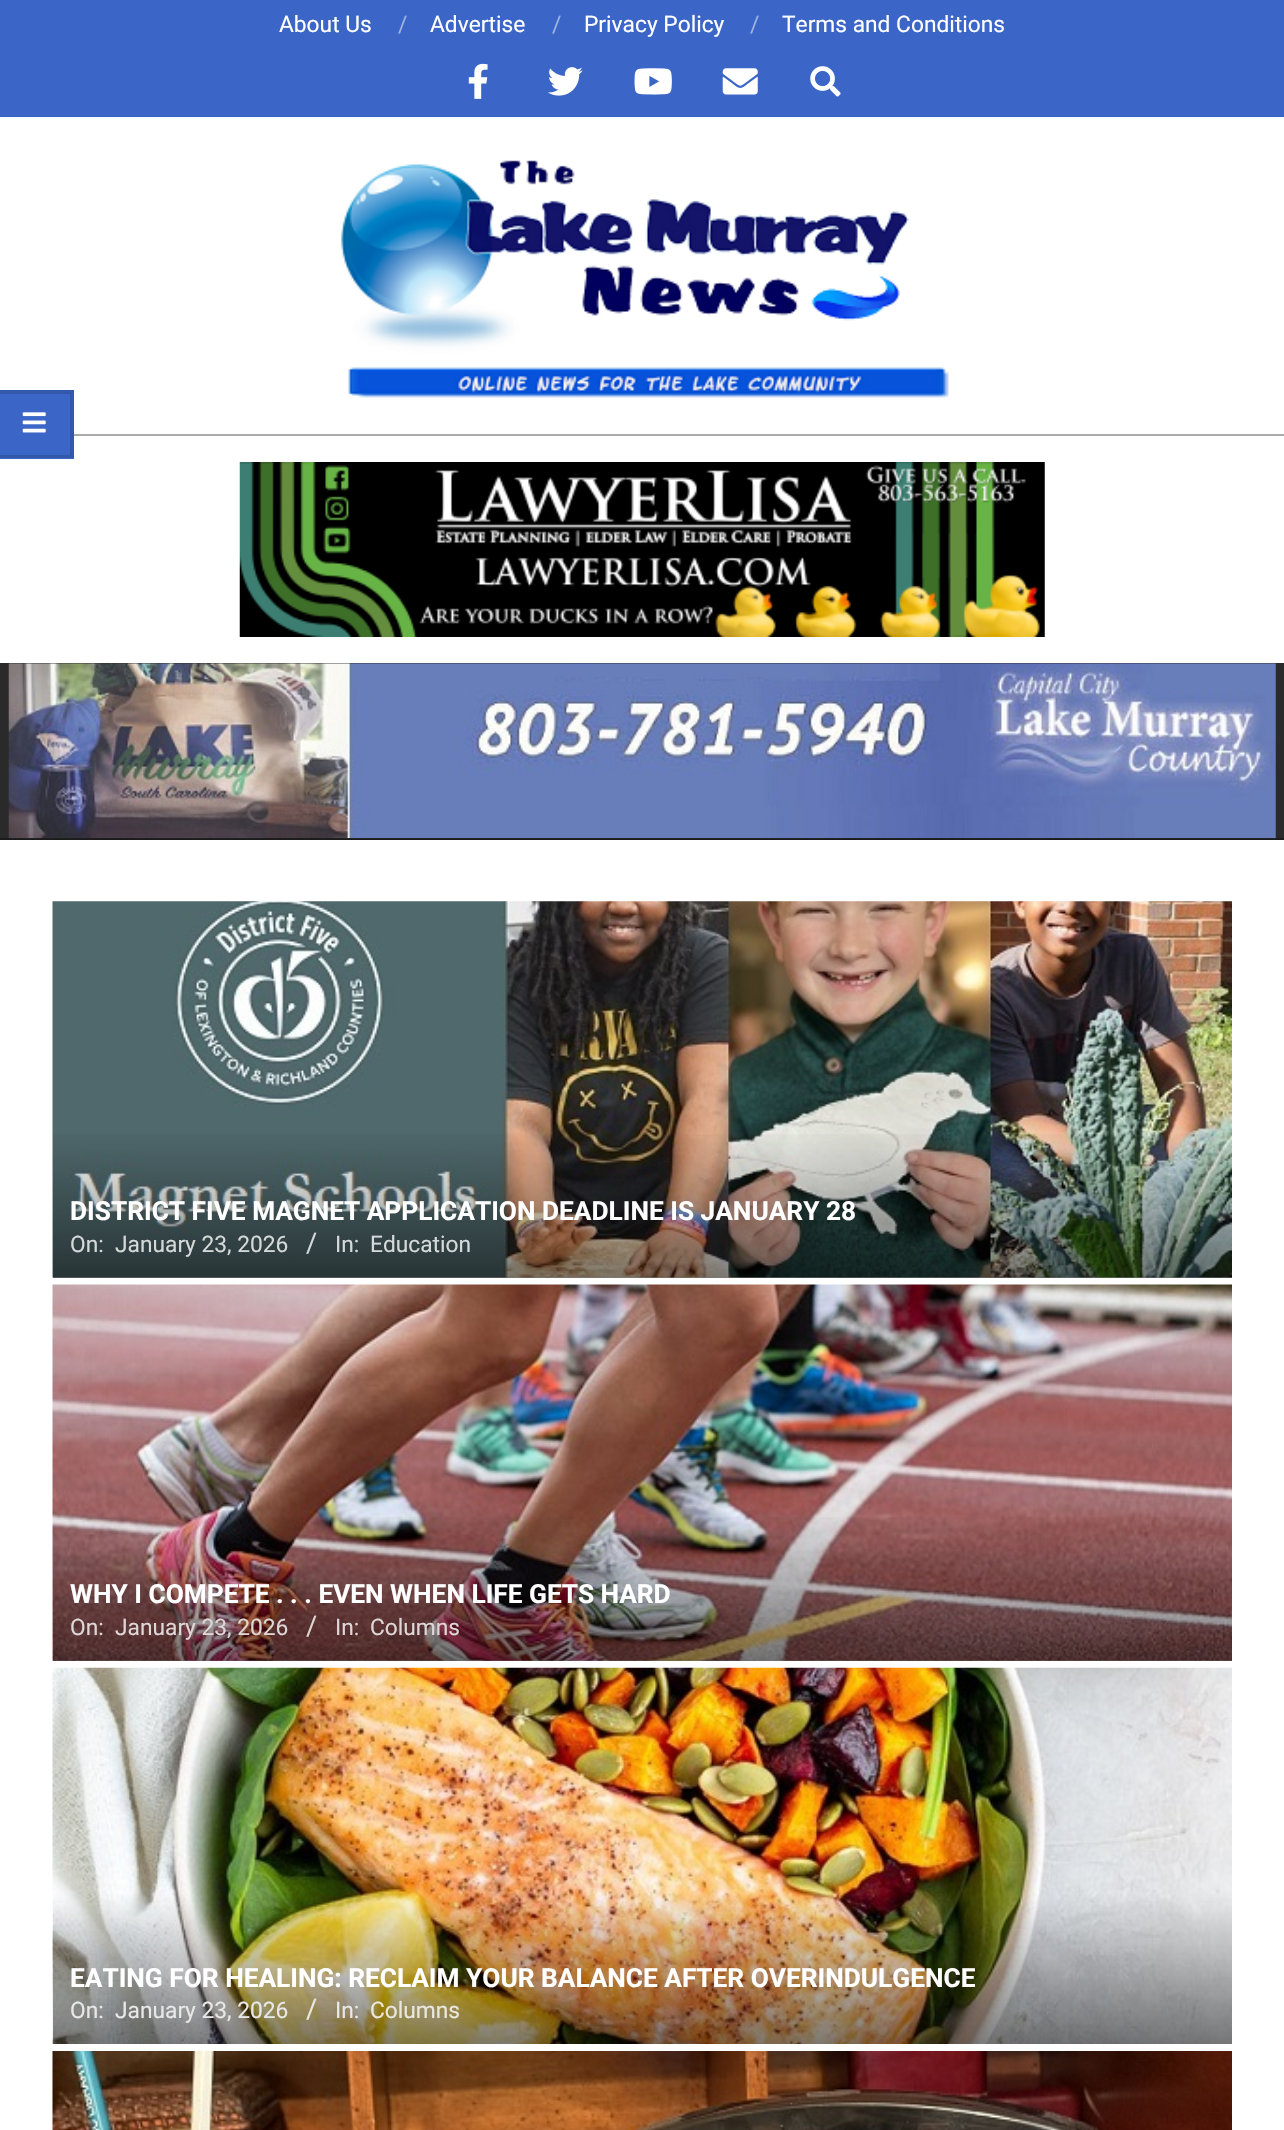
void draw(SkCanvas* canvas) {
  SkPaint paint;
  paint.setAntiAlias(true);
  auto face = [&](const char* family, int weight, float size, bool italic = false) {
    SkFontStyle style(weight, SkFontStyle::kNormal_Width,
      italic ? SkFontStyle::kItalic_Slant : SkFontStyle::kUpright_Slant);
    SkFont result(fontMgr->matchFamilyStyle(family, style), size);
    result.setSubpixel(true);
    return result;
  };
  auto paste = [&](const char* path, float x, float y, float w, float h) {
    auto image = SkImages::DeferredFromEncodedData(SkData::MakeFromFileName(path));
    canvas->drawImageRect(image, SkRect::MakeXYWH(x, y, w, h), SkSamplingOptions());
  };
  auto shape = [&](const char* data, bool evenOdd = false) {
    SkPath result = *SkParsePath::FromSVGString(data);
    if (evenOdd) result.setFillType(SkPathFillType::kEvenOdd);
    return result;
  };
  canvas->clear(0xffffffff);
  paint.setColor(0xff3b65c6);
  canvas->drawRect(SkRect::MakeXYWH(0, 0, 1284, 117), paint);
  paste("img/1.png", 468, 63, 20, 36);
  paste("img/2.png", 548, 67, 35, 29);
  paste("img/3.png", 634, 68, 38, 27);
  paste("img/4.png", 722, 68, 36, 27);
  paste("img/5.png", 810, 66, 31, 31);
  canvas->drawRect(SkRect::MakeXYWH(0, 390, 74, 69), paint);
  paint.setColor(0xff3357aa);
  canvas->drawPath(shape("M0 390H74L70 394H0Z"), paint);
  paint.setColor(0x24000000);
  canvas->drawPath(shape("M74 390V458L70 455V394Z"), paint);
  canvas->drawPath(shape("M74 458H0V455H70Z"), paint);
  paste("img/6.png", 22, 412, 24, 21);
  paste("img/7.png", 340, 160, 609, 238);
  paint.setColor(0xffababab);
  canvas->drawRect(SkRect::MakeXYWH(74, 434, 1210, 2), paint);
  paste("img/8.png", 239, 462, 806, 175);
  paint.setColor(0xff2a2a2a);
  canvas->drawRect(SkRect::MakeXYWH(0, 663, 1284, 175), paint);
  paint.setColor(0xff1c1c1c);
  canvas->drawRect(SkRect::MakeXYWH(0, 838, 1284, 2), paint);
  paste("img/9.png", 8, 663, 1268, 176);
  paint.setColor(0xfff8f8f8);
  canvas->drawRect(SkRect::MakeXYWH(53, 901, 1179, 377), paint);
  paste("img/10.png", 52, 901, 1180, 377);
  {
    const SkColor colors[] = {0x00000000, 0x80000000};
    const float stops[] = {0.6f, 1};
    const SkPoint ends[] = {{642, 901}, {642, 1278}};
    paint.setShader(SkGradientShader::MakeLinear(ends, colors, stops, 2, SkTileMode::kClamp));
    paint.setAlpha(255);
  }
  canvas->drawRect(SkRect::MakeXYWH(53, 1134, 1179, 144), paint);
  paste("img/11.png", 52, 1284, 1180, 377);
  {
    const SkColor colors[] = {0x00000000, 0x80000000};
    const float stops[] = {0.6f, 1};
    const SkPoint ends[] = {{642, 1285}, {642, 1661}};
    paint.setShader(SkGradientShader::MakeLinear(ends, colors, stops, 2, SkTileMode::kClamp));
    paint.setAlpha(255);
  }
  canvas->drawRect(SkRect::MakeXYWH(53, 1517, 1179, 144), paint);
  paste("img/12.png", 52, 1667, 1180, 377);
  paste("img/13.png", 52, 2051, 1180, 79);
  auto f0 = face("Roboto", 400, 22.75f);
  paint.setShader(nullptr);
  paint.setColor(0xffffffff);
  canvas->drawString("About Us", 279, 32, f0, paint);
  paint.setColor(0xff9db2e3);
  canvas->drawString("/", 398, 32, f0, paint);
  paint.setColor(0xffffffff);
  canvas->drawString("Advertise", 430, 32, f0, paint);
  paint.setColor(0xff9db2e3);
  canvas->drawString("/", 552, 32, f0, paint);
  paint.setColor(0xffffffff);
  canvas->drawString("Privacy Policy", 584, 32, f0, paint);
  paint.setColor(0xff9db2e3);
  canvas->drawString("/", 750, 32, f0, paint);
  paint.setColor(0xffffffff);
  canvas->drawString("Terms and Conditions", 782, 32, f0, paint);
  auto f1 = face("Roboto", 700, 26.25f);
  canvas->drawString("DISTRICT FIVE MAGNET APPLICATION DEADLINE IS JANUARY 28", 70, 1220, f1, paint);
  paint.setColor(0xffd6d9d9);
  canvas->drawString("On:", 70, 1252, f0, paint);
  canvas->drawString("January 23, 2026", 115, 1252, f0, paint);
  auto f2 = face("Roboto", 400, 27);
  canvas->drawString("/", 306, 1252, f2, paint);
  canvas->drawString("In:", 335, 1252, f0, paint);
  canvas->drawString("Education", 370, 1252, f0, paint);
  paint.setColor(0xffffffff);
  canvas->drawString("WHY I COMPETE . . . EVEN WHEN LIFE GETS HARD", 70, 1603, f1, paint);
  paint.setColor(0xffded7d7);
  canvas->drawString("On:", 70, 1635, f0, paint);
  canvas->drawString("January 23, 2026", 115, 1635, f0, paint);
  canvas->drawString("/", 306, 1635, f2, paint);
  canvas->drawString("In:", 335, 1635, f0, paint);
  canvas->drawString("Columns", 370, 1635, f0, paint);
  paint.setColor(0xffffffff);
  canvas->drawString("EATING FOR HEALING: RECLAIM YOUR BALANCE AFTER OVERINDULGENCE", 70, 1987, f1, paint);
  paint.setColor(0xffe7e8e7);
  canvas->drawString("On:", 70, 2018, f0, paint);
  canvas->drawString("January 23, 2026", 115, 2018, f0, paint);
  paint.setColor(0xffeae7df);
  canvas->drawString("/", 306, 2018, f2, paint);
  paint.setColor(0xffe7e8e7);
  canvas->drawString("In:", 335, 2018, f0, paint);
  paint.setColor(0xffeae7df);
  canvas->drawString("Columns", 370, 2018, f0, paint);
}
